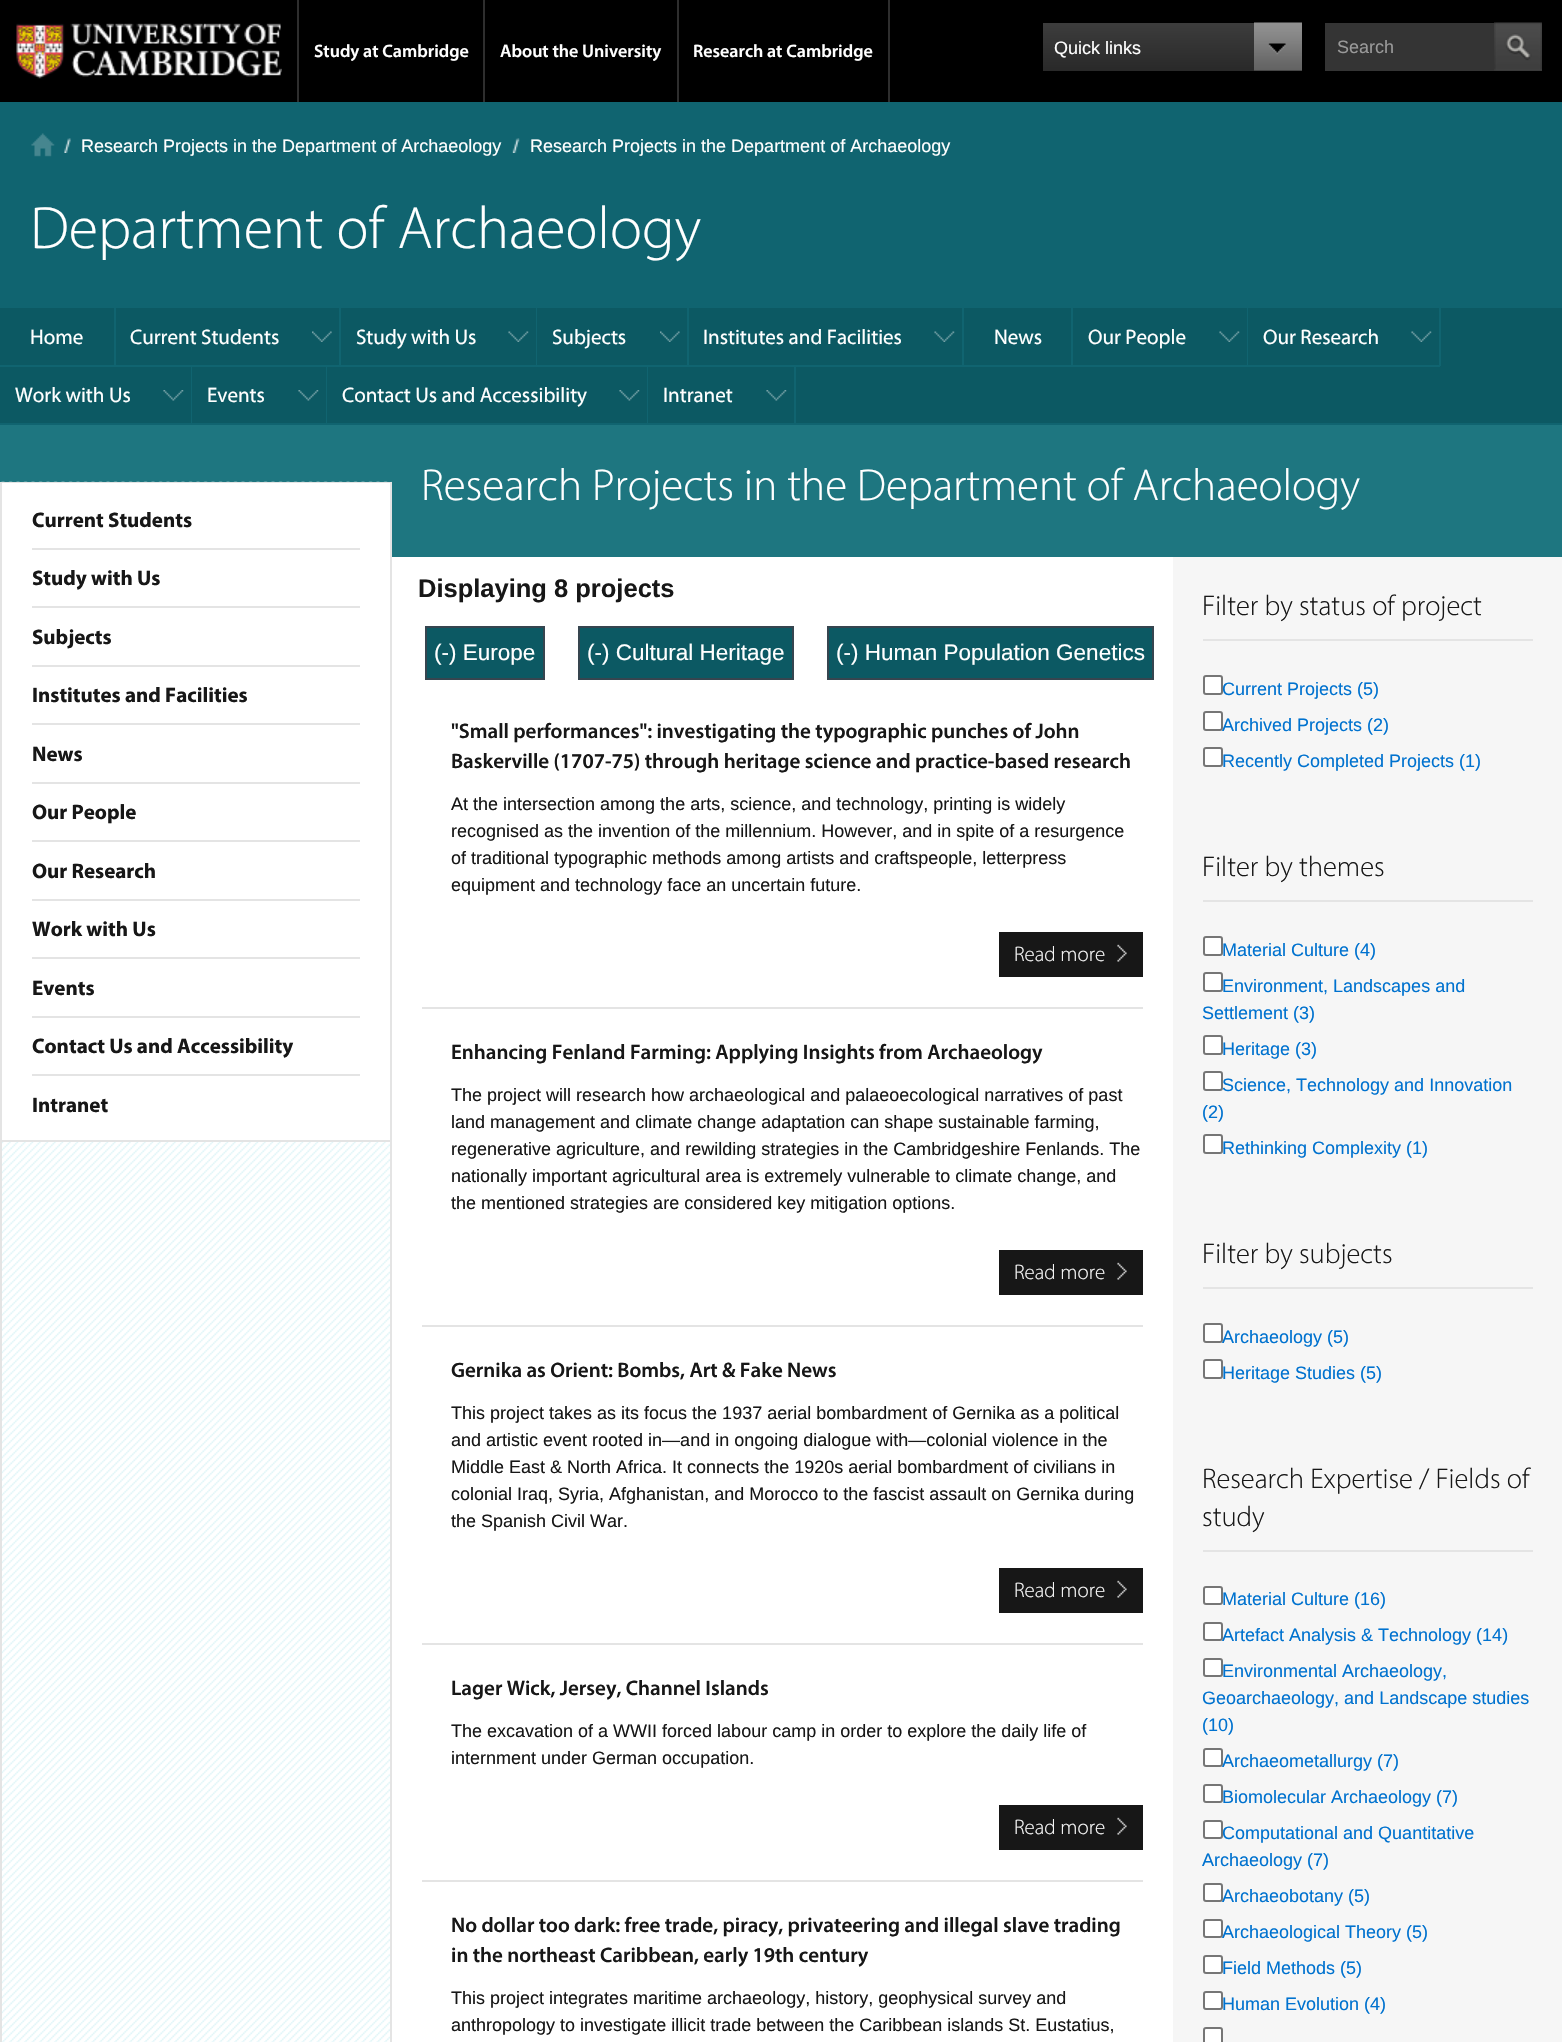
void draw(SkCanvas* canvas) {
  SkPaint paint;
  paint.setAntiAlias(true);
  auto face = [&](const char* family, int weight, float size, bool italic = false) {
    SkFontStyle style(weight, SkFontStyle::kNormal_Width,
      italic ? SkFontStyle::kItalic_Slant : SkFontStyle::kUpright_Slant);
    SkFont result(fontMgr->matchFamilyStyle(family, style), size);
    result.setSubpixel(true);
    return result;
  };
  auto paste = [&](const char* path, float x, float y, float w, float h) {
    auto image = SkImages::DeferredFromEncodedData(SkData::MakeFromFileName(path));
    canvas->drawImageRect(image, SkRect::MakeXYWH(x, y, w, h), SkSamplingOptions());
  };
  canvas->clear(0xff000000);
  paste("img/1.png", 16, 23, 266, 56);
  {
    const struct { float x, y, w, h; SkColor color; } items[] = {
      {297, 0, 2, 102, 0xff2e2e2e},
      {483, 0, 2, 102, 0xff2e2e2e},
      {677, 0, 2, 102, 0xff2e2e2e},
      {888, 0, 2, 102, 0xff2e2e2e},
    };
    for (auto [x, y, w, h, color] : items) {
      paint.setColor(color);
      canvas->drawRect(SkRect::MakeXYWH(x, y, w, h), paint);
    }
  }
  {
    const SkColor colors[] = {0xff3d3d3d, 0xff292929};
    const float stops[] = {0, 1};
    const SkPoint ends[] = {{1172, 22}, {1172, 71}};
    paint.setShader(SkGradientShader::MakeLinear(ends, colors, stops, 2, SkTileMode::kClamp));
    paint.setAlpha(255);
  }
  canvas->drawRect(SkRect::MakeXYWH(1043, 23, 259, 48), paint);
  paste("img/2.png", 1254, 22, 48, 49);
  paint.setShader(nullptr);
  paint.setColor(0xff343434);
  canvas->drawRect(SkRect::MakeXYWH(1325, 23, 169, 48), paint);
  canvas->drawRect(SkRect::MakeXYWH(1494, 70, 48, 1), paint);
  paste("img/3.png", 1494, 22, 48, 49);
  paint.setColor(0xff106470);
  canvas->drawRect(SkRect::MakeXYWH(0, 102, 1562, 204), paint);
  paste("img/4.png", 31, 133, 24, 24);
  paste("img/5.png", 64, 138, 7, 15);
  paste("img/6.png", 512, 138, 8, 15);
  {
    const struct { float x, y, w, h; SkColor color; } items[] = {
      {796, 308, 766, 115, 0xff0c5963},
      {1441, 306, 121, 2, 0xff106470},
      {796, 423, 766, 2, 0xff106470},
      {0, 308, 114, 57, 0xff0c5963},
      {0, 306, 689, 2, 0xff106470},
      {114, 306, 2, 60, 0xff106470},
      {116, 308, 223, 57, 0xff0c5963},
    };
    for (auto [x, y, w, h, color] : items) {
      paint.setColor(color);
      canvas->drawRect(SkRect::MakeXYWH(x, y, w, h), paint);
    }
  }
  paste("img/7.png", 312, 331, 20, 11);
  paint.setColor(0xff106470);
  canvas->drawRect(SkRect::MakeXYWH(339, 306, 2, 60), paint);
  paint.setColor(0xff0c5963);
  canvas->drawRect(SkRect::MakeXYWH(341, 308, 195, 57), paint);
  paste("img/8.png", 508, 331, 21, 11);
  paint.setColor(0xff106470);
  canvas->drawRect(SkRect::MakeXYWH(536, 306, 1, 60), paint);
  paint.setColor(0xff0c5963);
  canvas->drawRect(SkRect::MakeXYWH(537, 308, 150, 57), paint);
  paste("img/9.png", 660, 331, 20, 11);
  paint.setColor(0xff106470);
  canvas->drawRect(SkRect::MakeXYWH(687, 306, 2, 60), paint);
  paint.setColor(0xff0c5963);
  canvas->drawRect(SkRect::MakeXYWH(689, 308, 107, 57), paint);
  paste("img/8.png", 934, 331, 21, 11);
  {
    const struct { float x, y, w, h; SkColor color; } items[] = {
      {689, 306, 751, 2, 0xff106470},
      {1071, 306, 2, 60, 0xff106470},
      {963, 365, 110, 2, 0xff106470},
      {962, 306, 2, 60, 0xff106470},
      {796, 365, 167, 2, 0xff106470},
    };
    for (auto [x, y, w, h, color] : items) {
      paint.setColor(color);
      canvas->drawRect(SkRect::MakeXYWH(x, y, w, h), paint);
    }
  }
  paste("img/8.png", 1219, 331, 21, 11);
  canvas->drawRect(SkRect::MakeXYWH(1247, 306, 1, 60), paint);
  canvas->drawRect(SkRect::MakeXYWH(1073, 365, 175, 2), paint);
  paste("img/10.png", 1411, 331, 21, 11);
  {
    const struct { float x, y, w, h; SkColor color; } items[] = {
      {1439, 306, 2, 60, 0xff106470},
      {1248, 365, 192, 2, 0xff106470},
      {0, 367, 191, 56, 0xff0c5963},
    };
    for (auto [x, y, w, h, color] : items) {
      paint.setColor(color);
      canvas->drawRect(SkRect::MakeXYWH(x, y, w, h), paint);
    }
  }
  paste("img/11.png", 163, 390, 21, 11);
  {
    const struct { float x, y, w, h; SkColor color; } items[] = {
      {0, 365, 795, 2, 0xff106470},
      {191, 365, 1, 60, 0xff106470},
      {0, 423, 192, 2, 0xff106470},
      {192, 367, 134, 56, 0xff0c5963},
    };
    for (auto [x, y, w, h, color] : items) {
      paint.setColor(color);
      canvas->drawRect(SkRect::MakeXYWH(x, y, w, h), paint);
    }
  }
  paste("img/12.png", 298, 390, 21, 11);
  {
    const struct { float x, y, w, h; SkColor color; } items[] = {
      {326, 365, 1, 60, 0xff106470},
      {192, 423, 135, 2, 0xff106470},
      {327, 367, 320, 56, 0xff0c5963},
    };
    for (auto [x, y, w, h, color] : items) {
      paint.setColor(color);
      canvas->drawRect(SkRect::MakeXYWH(x, y, w, h), paint);
    }
  }
  paste("img/12.png", 619, 390, 21, 11);
  {
    const struct { float x, y, w, h; SkColor color; } items[] = {
      {647, 365, 1, 60, 0xff106470},
      {327, 423, 321, 2, 0xff106470},
      {648, 367, 146, 56, 0xff0c5963},
    };
    for (auto [x, y, w, h, color] : items) {
      paint.setColor(color);
      canvas->drawRect(SkRect::MakeXYWH(x, y, w, h), paint);
    }
  }
  paste("img/11.png", 766, 390, 21, 11);
  {
    const struct { float x, y, w, h; SkColor color; } items[] = {
      {794, 365, 2, 60, 0xff106470},
      {648, 423, 147, 2, 0xff106470},
      {0, 425, 1562, 132, 0xff1e7680},
      {2, 557, 1171, 1485, 0xffffffff},
    };
    for (auto [x, y, w, h, color] : items) {
      paint.setColor(color);
      canvas->drawRect(SkRect::MakeXYWH(x, y, w, h), paint);
    }
  }
  paste("img/13.png", 1, 481, 391, 1561);
  {
    const struct { float x, y, w, h; SkColor color; } items[] = {
      {0, 482, 392, 1, 0xffe4e4e4},
      {390, 482, 2, 1560, 0xffe4e4e4},
      {0, 482, 2, 1560, 0xffe4e4e4},
      {2, 483, 388, 657, 0xffffffff},
      {2, 1140, 388, 2, 0xffe4e4e4},
      {32, 548, 328, 2, 0xffe4e4e4},
      {32, 606, 328, 2, 0xffe4e4e4},
      {32, 665, 328, 2, 0xffe4e4e4},
      {32, 723, 328, 2, 0xffe4e4e4},
      {32, 782, 328, 2, 0xffe4e4e4},
      {32, 840, 328, 2, 0xffe4e4e4},
      {32, 899, 328, 2, 0xffe4e4e4},
      {32, 957, 328, 2, 0xffe4e4e4},
      {32, 1016, 328, 2, 0xffe4e4e4},
      {32, 1074, 328, 2, 0xffe4e4e4},
    };
    for (auto [x, y, w, h, color] : items) {
      paint.setColor(color);
      canvas->drawRect(SkRect::MakeXYWH(x, y, w, h), paint);
    }
  }
  paint.setColor(0xff0c5963);
  canvas->drawRect(SkRect::MakeXYWH(426, 627, 118, 52), paint);
  paint.setStroke(true);
  paint.setStrokeWidth(2);
  paint.setColor(0xff36454f);
  canvas->drawRect(SkRect::MakeXYWH(426, 627, 118, 52), paint);
  paint.setStroke(false);
  paint.setColor(0xff0c5963);
  canvas->drawRect(SkRect::MakeXYWH(579, 627, 214, 52), paint);
  paint.setStroke(true);
  paint.setColor(0xff36454f);
  canvas->drawRect(SkRect::MakeXYWH(579, 627, 214, 52), paint);
  paint.setStroke(false);
  paint.setColor(0xff0c5963);
  canvas->drawRect(SkRect::MakeXYWH(828, 627, 325, 52), paint);
  paint.setStroke(true);
  paint.setColor(0xff36454f);
  canvas->drawRect(SkRect::MakeXYWH(828, 627, 325, 52), paint);
  paint.setStroke(false);
  paint.setColor(0xff171717);
  canvas->drawRect(SkRect::MakeXYWH(999, 932, 144, 45), paint);
  paste("img/14.png", 1117, 944, 10, 18);
  paint.setColor(0xffe4e4e4);
  canvas->drawRect(SkRect::MakeXYWH(422, 1007, 721, 2), paint);
  paint.setColor(0xff171717);
  canvas->drawRect(SkRect::MakeXYWH(999, 1250, 144, 45), paint);
  paste("img/14.png", 1117, 1262, 10, 18);
  paint.setColor(0xffe4e4e4);
  canvas->drawRect(SkRect::MakeXYWH(422, 1325, 721, 2), paint);
  paint.setColor(0xff171717);
  canvas->drawRect(SkRect::MakeXYWH(999, 1568, 144, 45), paint);
  paste("img/14.png", 1117, 1580, 10, 18);
  paint.setColor(0xffe4e4e4);
  canvas->drawRect(SkRect::MakeXYWH(422, 1643, 721, 2), paint);
  paint.setColor(0xff171717);
  canvas->drawRect(SkRect::MakeXYWH(999, 1805, 144, 45), paint);
  paste("img/14.png", 1117, 1817, 10, 18);
  {
    const struct { float x, y, w, h; SkColor color; } items[] = {
      {422, 1880, 721, 2, 0xffe4e4e4},
      {1173, 557, 389, 1485, 0xfff6f6f6},
      {1203, 639, 330, 2, 0xffe4e4e4},
    };
    for (auto [x, y, w, h, color] : items) {
      paint.setColor(color);
      canvas->drawRect(SkRect::MakeXYWH(x, y, w, h), paint);
    }
  }
  paint.setColor(0xffffffff);
  canvas->drawRoundRect(SkRect::MakeXYWH(1204, 676, 18, 18), 2, 2, paint);
  paint.setStroke(true);
  paint.setColor(0xff767676);
  canvas->drawRoundRect(SkRect::MakeXYWH(1204, 676, 18, 18), 2, 2, paint);
  paint.setStroke(false);
  paint.setColor(0xffffffff);
  canvas->drawRoundRect(SkRect::MakeXYWH(1204, 712, 18, 18), 2, 2, paint);
  paint.setStroke(true);
  paint.setColor(0xff767676);
  canvas->drawRoundRect(SkRect::MakeXYWH(1204, 712, 18, 18), 2, 2, paint);
  paint.setStroke(false);
  paint.setColor(0xffffffff);
  canvas->drawRoundRect(SkRect::MakeXYWH(1204, 748, 18, 18), 2, 2, paint);
  paint.setStroke(true);
  paint.setColor(0xff767676);
  canvas->drawRoundRect(SkRect::MakeXYWH(1204, 748, 18, 18), 2, 2, paint);
  paint.setStroke(false);
  paint.setColor(0xffe4e4e4);
  canvas->drawRect(SkRect::MakeXYWH(1203, 900, 330, 2), paint);
  paint.setColor(0xffffffff);
  canvas->drawRoundRect(SkRect::MakeXYWH(1204, 937, 18, 18), 2, 2, paint);
  paint.setStroke(true);
  paint.setColor(0xff767676);
  canvas->drawRoundRect(SkRect::MakeXYWH(1204, 937, 18, 18), 2, 2, paint);
  paint.setStroke(false);
  paint.setColor(0xffffffff);
  canvas->drawRoundRect(SkRect::MakeXYWH(1204, 973, 18, 18), 2, 2, paint);
  paint.setStroke(true);
  paint.setColor(0xff767676);
  canvas->drawRoundRect(SkRect::MakeXYWH(1204, 973, 18, 18), 2, 2, paint);
  paint.setStroke(false);
  paint.setColor(0xffffffff);
  canvas->drawRoundRect(SkRect::MakeXYWH(1204, 1036, 18, 18), 2, 2, paint);
  paint.setStroke(true);
  paint.setColor(0xff767676);
  canvas->drawRoundRect(SkRect::MakeXYWH(1204, 1036, 18, 18), 2, 2, paint);
  paint.setStroke(false);
  paint.setColor(0xffffffff);
  canvas->drawRoundRect(SkRect::MakeXYWH(1204, 1072, 18, 18), 2, 2, paint);
  paint.setStroke(true);
  paint.setColor(0xff767676);
  canvas->drawRoundRect(SkRect::MakeXYWH(1204, 1072, 18, 18), 2, 2, paint);
  paint.setStroke(false);
  paint.setColor(0xffffffff);
  canvas->drawRoundRect(SkRect::MakeXYWH(1204, 1135, 18, 18), 2, 2, paint);
  paint.setStroke(true);
  paint.setColor(0xff767676);
  canvas->drawRoundRect(SkRect::MakeXYWH(1204, 1135, 18, 18), 2, 2, paint);
  paint.setStroke(false);
  paint.setColor(0xffe4e4e4);
  canvas->drawRect(SkRect::MakeXYWH(1203, 1287, 330, 2), paint);
  paint.setColor(0xffffffff);
  canvas->drawRoundRect(SkRect::MakeXYWH(1204, 1324, 18, 18), 2, 2, paint);
  paint.setStroke(true);
  paint.setColor(0xff767676);
  canvas->drawRoundRect(SkRect::MakeXYWH(1204, 1324, 18, 18), 2, 2, paint);
  paint.setStroke(false);
  paint.setColor(0xffffffff);
  canvas->drawRoundRect(SkRect::MakeXYWH(1204, 1360, 18, 18), 2, 2, paint);
  paint.setStroke(true);
  paint.setColor(0xff767676);
  canvas->drawRoundRect(SkRect::MakeXYWH(1204, 1360, 18, 18), 2, 2, paint);
  paint.setStroke(false);
  paint.setColor(0xffe4e4e4);
  canvas->drawRect(SkRect::MakeXYWH(1203, 1550, 330, 2), paint);
  paint.setColor(0xffffffff);
  canvas->drawRoundRect(SkRect::MakeXYWH(1204, 1587, 18, 17), 2, 2, paint);
  paint.setStroke(true);
  paint.setColor(0xff767676);
  canvas->drawRoundRect(SkRect::MakeXYWH(1204, 1587, 18, 17), 2, 2, paint);
  paint.setStroke(false);
  paint.setColor(0xffffffff);
  canvas->drawRoundRect(SkRect::MakeXYWH(1204, 1623, 18, 17), 2, 2, paint);
  paint.setStroke(true);
  paint.setColor(0xff767676);
  canvas->drawRoundRect(SkRect::MakeXYWH(1204, 1623, 18, 17), 2, 2, paint);
  paint.setStroke(false);
  paint.setColor(0xffffffff);
  canvas->drawRoundRect(SkRect::MakeXYWH(1204, 1659, 18, 17), 2, 2, paint);
  paint.setStroke(true);
  paint.setColor(0xff767676);
  canvas->drawRoundRect(SkRect::MakeXYWH(1204, 1659, 18, 17), 2, 2, paint);
  paint.setStroke(false);
  paint.setColor(0xffffffff);
  canvas->drawRoundRect(SkRect::MakeXYWH(1204, 1749, 18, 17), 2, 2, paint);
  paint.setStroke(true);
  paint.setColor(0xff767676);
  canvas->drawRoundRect(SkRect::MakeXYWH(1204, 1749, 18, 17), 2, 2, paint);
  paint.setStroke(false);
  paint.setColor(0xffffffff);
  canvas->drawRoundRect(SkRect::MakeXYWH(1204, 1785, 18, 17), 2, 2, paint);
  paint.setStroke(true);
  paint.setColor(0xff767676);
  canvas->drawRoundRect(SkRect::MakeXYWH(1204, 1785, 18, 17), 2, 2, paint);
  paint.setStroke(false);
  paint.setColor(0xffffffff);
  canvas->drawRoundRect(SkRect::MakeXYWH(1204, 1821, 18, 17), 2, 2, paint);
  paint.setStroke(true);
  paint.setColor(0xff767676);
  canvas->drawRoundRect(SkRect::MakeXYWH(1204, 1821, 18, 17), 2, 2, paint);
  paint.setStroke(false);
  paint.setColor(0xffffffff);
  canvas->drawRoundRect(SkRect::MakeXYWH(1204, 1884, 18, 17), 2, 2, paint);
  paint.setStroke(true);
  paint.setColor(0xff767676);
  canvas->drawRoundRect(SkRect::MakeXYWH(1204, 1884, 18, 17), 2, 2, paint);
  paint.setStroke(false);
  paint.setColor(0xffffffff);
  canvas->drawRoundRect(SkRect::MakeXYWH(1204, 1920, 18, 17), 2, 2, paint);
  paint.setStroke(true);
  paint.setColor(0xff767676);
  canvas->drawRoundRect(SkRect::MakeXYWH(1204, 1920, 18, 17), 2, 2, paint);
  paint.setStroke(false);
  paint.setColor(0xffffffff);
  canvas->drawRoundRect(SkRect::MakeXYWH(1204, 1956, 18, 17), 2, 2, paint);
  paint.setStroke(true);
  paint.setColor(0xff767676);
  canvas->drawRoundRect(SkRect::MakeXYWH(1204, 1956, 18, 17), 2, 2, paint);
  paint.setStroke(false);
  paint.setColor(0xffffffff);
  canvas->drawRoundRect(SkRect::MakeXYWH(1204, 1992, 18, 17), 2, 2, paint);
  paint.setStroke(true);
  paint.setColor(0xff767676);
  canvas->drawRoundRect(SkRect::MakeXYWH(1204, 1992, 18, 17), 2, 2, paint);
  paint.setStroke(false);
  paint.setColor(0xffffffff);
  canvas->drawRoundRect(SkRect::MakeXYWH(1204, 2028, 18, 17), 2, 2, paint);
  paint.setStroke(true);
  paint.setColor(0xff767676);
  canvas->drawRoundRect(SkRect::MakeXYWH(1204, 2028, 18, 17), 2, 2, paint);
  auto f0 = face("Myriad", 600, 18);
  paint.setStroke(false);
  paint.setColor(0xffffffff);
  {
    const struct { const char* s; float x, y; } items[] = {
      {"Study at Cambridge", 314, 57},
      {"About the University", 500, 57},
      {"Research at Cambridge", 693, 57},
    };
    for (auto [s, x, y] : items) {
      canvas->drawString(s, x, y, f0, paint);
    }
  }
  auto f1 = face("Liberation Sans", 400, 18);
  canvas->drawString("Quick links", 1054, 54, f1, paint);
  paint.setColor(0xff999999);
  canvas->drawString("Search", 1337, 53, f1, paint);
  paint.setColor(0xffffffff);
  canvas->drawString("Research Projects in the Department of Archaeology", 81, 152, f1, paint);
  canvas->drawString("Research Projects in the Department of Archaeology", 530, 152, f1, paint);
  auto f2 = face("Myriad", 300, 60);
  canvas->drawString("Department of Archaeology", 30, 248, f2, paint);
  auto f3 = face("Myriad", 400, 21);
  {
    const struct { const char* s; float x, y; } items[] = {
      {"Home", 30, 344},
      {"Current Students", 130, 344},
      {"Study with Us", 356, 344},
      {"Subjects", 552, 344},
      {"Institutes and Facilities", 703, 344},
      {"News", 994, 344},
      {"Our People", 1088, 344},
      {"Our Research", 1263, 344},
      {"Work with Us", 15, 402},
      {"Events", 207, 402},
      {"Contact Us and Accessibility", 342, 402},
      {"Intranet", 663, 402},
    };
    for (auto [s, x, y] : items) {
      canvas->drawString(s, x, y, f3, paint);
    }
  }
  auto f4 = face("Myriad", 300, 45);
  canvas->drawString("Research Projects in the Department of Archaeology", 421, 500, f4, paint);
  auto f5 = face("Myriad", 700, 21);
  paint.setColor(0xff171717);
  {
    const struct { const char* s; float x, y; } items[] = {
      {"Current Students", 32, 527},
      {"Study with Us", 32, 585},
      {"Subjects", 32, 644},
      {"Institutes and Facilities", 32, 702},
      {"News", 32, 761},
      {"Our People", 32, 819},
      {"Our Research", 32, 878},
      {"Work with Us", 32, 936},
      {"Events", 32, 995},
      {"Contact Us and Accessibility", 32, 1053},
      {"Intranet", 32, 1112},
    };
    for (auto [s, x, y] : items) {
      canvas->drawString(s, x, y, f5, paint);
    }
  }
  auto f6 = face("Liberation Sans", 700, 25.5f);
  canvas->drawString("Displaying 8 projects", 418, 597, f6, paint);
  auto f7 = face("Liberation Sans", 400, 22.5f);
  paint.setColor(0xffffffff);
  {
    const struct { const char* s; float x, y; } items[] = {
      {"(-) Europe", 434, 660},
      {"(-) Cultural Heritage", 587, 660},
      {"(-) Human Population Genetics", 836, 660},
    };
    for (auto [s, x, y] : items) {
      canvas->drawString(s, x, y, f7, paint);
    }
  }
  auto f8 = face("Myriad", 600, 21);
  paint.setColor(0xff171717);
  canvas->drawString("\"Small performances\": investigating the typographic punches of John", 451, 738, f8, paint);
  canvas->drawString("Baskerville (1707-75) through heritage science and practice-based research", 451, 768, f8, paint);
  {
    const struct { const char* s; float x, y; } items[] = {
      {"At the intersection among the arts, science, and technology, printing is widely", 451, 810},
      {"recognised as the invention of the millennium. However, and in spite of a resurgence", 451, 837},
      {"of traditional typographic methods among artists and craftspeople, letterpress", 451, 864},
      {"equipment and technology face an uncertain future.", 451, 891},
    };
    for (auto [s, x, y] : items) {
      canvas->drawString(s, x, y, f1, paint);
    }
  }
  auto f9 = face("Myriad", 300, 21);
  paint.setColor(0xfff8f8f8);
  canvas->drawString("Read more", 1014, 961, f9, paint);
  paint.setColor(0xff171717);
  canvas->drawString("Enhancing Fenland Farming: Applying Insights from Archaeology", 451, 1059, f8, paint);
  {
    const struct { const char* s; float x, y; } items[] = {
      {"The project will research how archaeological and palaeoecological narratives of past", 451, 1101},
      {"land management and climate change adaptation can shape sustainable farming,", 451, 1128},
      {"regenerative agriculture, and rewilding strategies in the Cambridgeshire Fenlands. The", 451, 1155},
      {"nationally important agricultural area is extremely vulnerable to climate change, and", 451, 1182},
      {"the mentioned strategies are considered key mitigation options.", 451, 1209},
    };
    for (auto [s, x, y] : items) {
      canvas->drawString(s, x, y, f1, paint);
    }
  }
  paint.setColor(0xfff8f8f8);
  canvas->drawString("Read more", 1014, 1279, f9, paint);
  paint.setColor(0xff171717);
  canvas->drawString("Gernika as Orient: Bombs, Art & Fake News", 451, 1377, f8, paint);
  {
    const struct { const char* s; float x, y; } items[] = {
      {"This project takes as its focus the 1937 aerial bombardment of Gernika as a political", 451, 1419},
      {"and artistic event rooted in—and in ongoing dialogue with—colonial violence in the", 451, 1446},
      {"Middle East & North Africa. It connects the 1920s aerial bombardment of civilians in", 451, 1473},
      {"colonial Iraq, Syria, Afghanistan, and Morocco to the fascist assault on Gernika during", 451, 1500},
      {"the Spanish Civil War.", 451, 1527},
    };
    for (auto [s, x, y] : items) {
      canvas->drawString(s, x, y, f1, paint);
    }
  }
  paint.setColor(0xfff8f8f8);
  canvas->drawString("Read more", 1014, 1597, f9, paint);
  paint.setColor(0xff171717);
  canvas->drawString("Lager Wick, Jersey, Channel Islands", 451, 1695, f8, paint);
  canvas->drawString("The excavation of a WWII forced labour camp in order to explore the daily life of", 451, 1737, f1, paint);
  canvas->drawString("internment under German occupation.", 451, 1764, f1, paint);
  paint.setColor(0xfff8f8f8);
  canvas->drawString("Read more", 1014, 1834, f9, paint);
  paint.setColor(0xff171717);
  canvas->drawString("No dollar too dark: free trade, piracy, privateering and illegal slave trading", 451, 1932, f8, paint);
  canvas->drawString("in the northeast Caribbean, early 19th century", 451, 1962, f8, paint);
  canvas->drawString("This project integrates maritime archaeology, history, geophysical survey and", 451, 2004, f1, paint);
  canvas->drawString("anthropology to investigate illicit trade between the Caribbean islands St. Eustatius,", 451, 2031, f1, paint);
  auto f10 = face("Myriad", 300, 28.5f);
  canvas->drawString("Filter by status of project", 1202, 615, f10, paint);
  paint.setColor(0xff0072cf);
  {
    const struct { const char* s; float x, y; } items[] = {
      {"Current Projects (5)", 1222, 695},
      {"Archived Projects (2)", 1222, 731},
      {"Recently Completed Projects (1)", 1222, 767},
    };
    for (auto [s, x, y] : items) {
      canvas->drawString(s, x, y, f1, paint);
    }
  }
  paint.setColor(0xff171717);
  canvas->drawString("Filter by themes", 1202, 876, f10, paint);
  paint.setColor(0xff0072cf);
  {
    const struct { const char* s; float x, y; } items[] = {
      {"Material Culture (4)", 1222, 956},
      {"Environment, Landscapes and", 1222, 992},
      {"Settlement (3)", 1202, 1019},
      {"Heritage (3)", 1222, 1055},
      {"Science, Technology and Innovation", 1222, 1091},
      {"(2)", 1202, 1118},
      {"Rethinking Complexity (1)", 1222, 1154},
    };
    for (auto [s, x, y] : items) {
      canvas->drawString(s, x, y, f1, paint);
    }
  }
  paint.setColor(0xff171717);
  canvas->drawString("Filter by subjects", 1202, 1263, f10, paint);
  paint.setColor(0xff0072cf);
  canvas->drawString("Archaeology (5)", 1222, 1343, f1, paint);
  canvas->drawString("Heritage Studies (5)", 1222, 1379, f1, paint);
  paint.setColor(0xff171717);
  canvas->drawString("Research Expertise / Fields of", 1202, 1488, f10, paint);
  canvas->drawString("study", 1202, 1526, f10, paint);
  paint.setColor(0xff0072cf);
  {
    const struct { const char* s; float x, y; } items[] = {
      {"Material Culture (16)", 1222, 1605},
      {"Artefact Analysis & Technology (14)", 1222, 1641},
      {"Environmental Archaeology,", 1222, 1677},
      {"Geoarchaeology, and Landscape studies", 1202, 1704},
      {"(10)", 1202, 1731},
      {"Archaeometallurgy (7)", 1222, 1767},
      {"Biomolecular Archaeology (7)", 1222, 1803},
      {"Computational and Quantitative", 1222, 1839},
      {"Archaeology (7)", 1202, 1866},
      {"Archaeobotany (5)", 1222, 1902},
      {"Archaeological Theory (5)", 1222, 1938},
      {"Field Methods (5)", 1222, 1974},
      {"Human Evolution (4)", 1222, 2010},
    };
    for (auto [s, x, y] : items) {
      canvas->drawString(s, x, y, f1, paint);
    }
  }
}
